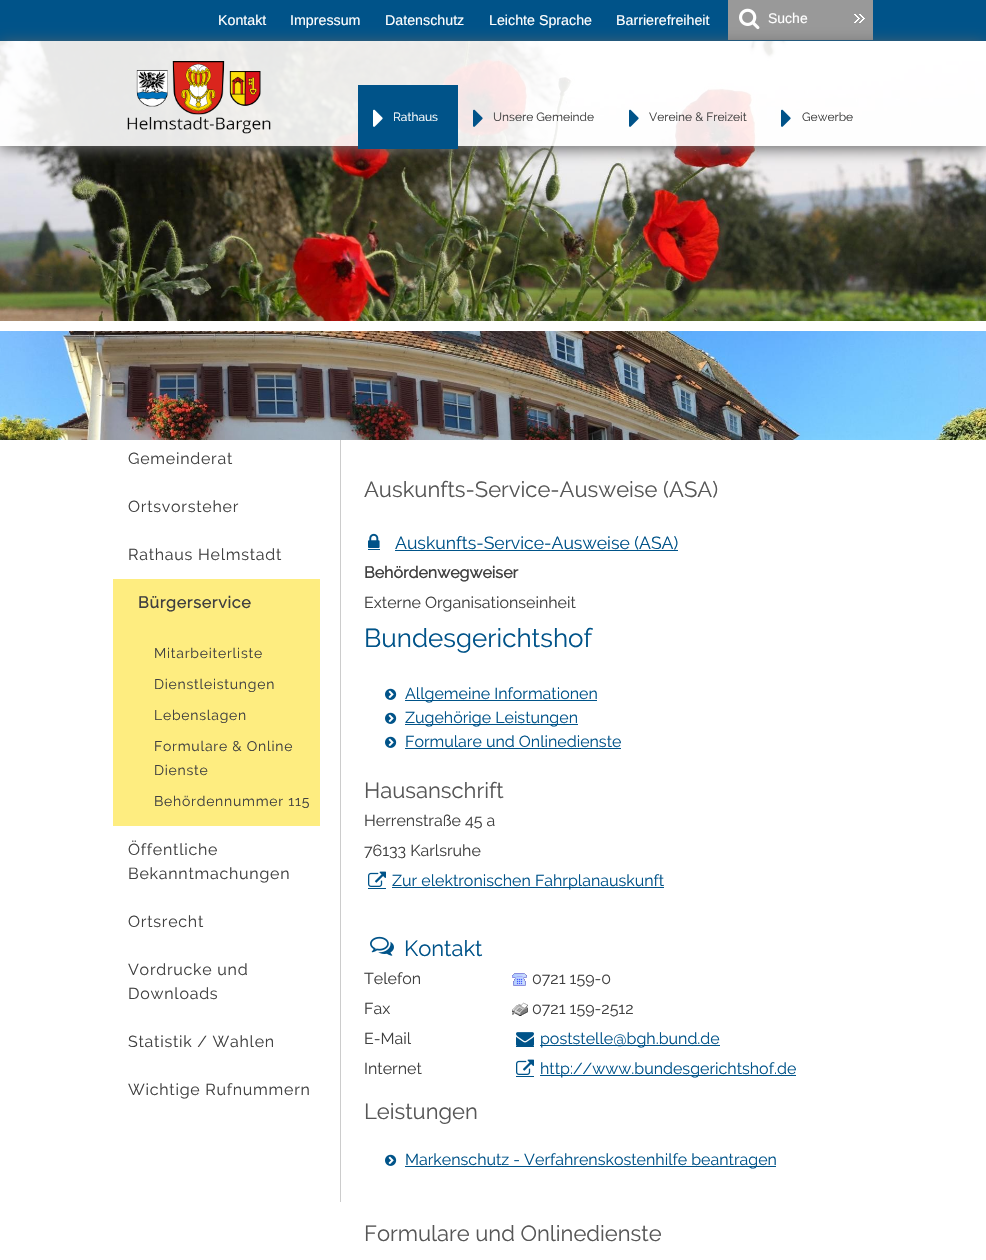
void draw(SkCanvas* canvas) {
  SkPaint paint;
  paint.setAntiAlias(true);
  auto face = [&](const char* family, int weight, float size, bool italic = false) {
    SkFontStyle style(weight, SkFontStyle::kNormal_Width,
      italic ? SkFontStyle::kItalic_Slant : SkFontStyle::kUpright_Slant);
    SkFont result(fontMgr->matchFamilyStyle(family, style), size);
    result.setSubpixel(true);
    return result;
  };
  auto writeSpaced = [&](const char* s, float x, float y, const SkFont& font, const SkPaint& ink, float letter, float word) {
    std::vector<SkGlyphID> glyphs(font.countText(s, strlen(s), SkTextEncoding::kUTF8));
    std::vector<float> xs(glyphs.size());
    font.textToGlyphs(s, strlen(s), SkTextEncoding::kUTF8, glyphs);
    font.getXPos(glyphs, xs, x);
    float extra = 0;
    for (size_t i = 0; i < glyphs.size(); i++) {
      xs[i] += extra;
      extra += letter + word * (glyphs[i] == font.unicharToGlyph(' '));
    }
    canvas->drawTextBlob(SkTextBlob::MakeFromPosHGlyphs(glyphs, xs, y, font), 0, 0, ink);
  };
  auto paste = [&](const char* path, float x, float y, float w, float h) {
    auto image = SkImages::DeferredFromEncodedData(SkData::MakeFromFileName(path));
    canvas->drawImageRect(image, SkRect::MakeXYWH(x, y, w, h), SkSamplingOptions());
  };
  auto shape = [&](const char* data, bool evenOdd = false) {
    SkPath result = *SkParsePath::FromSVGString(data);
    if (evenOdd) result.setFillType(SkPathFillType::kEvenOdd);
    return result;
  };
  canvas->clear(0xffffffff);
  paint.setColor(0xff005389);
  canvas->drawRect(SkRect::MakeXYWH(0, 0, 986, 41), paint);
  paint.setColor(0xff999999);
  canvas->drawRect(SkRect::MakeXYWH(728, 0, 145, 40), paint);
  paste("img/1.png", 739, 8, 21, 22);
  paste("img/2.png", 854, 14, 11, 9);
  paste("img/3.png", 0, 41, 986, 280);
  paste("img/4.png", 0, 331, 986, 109);
  canvas->save();
  canvas->clipPath(shape("M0 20H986V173H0ZM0 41H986V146H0Z", true), true);
  paint.setColor(0xff666666);
  paint.setMaskFilter(SkMaskFilter::MakeBlur(kNormal_SkBlurStyle, 7.5f));
  canvas->drawRect(SkRect::MakeXYWH(0, 44, 986, 105), paint);
  paint.setMaskFilter(nullptr);
  canvas->restore();
  paint.setColor(0xe6ffffff);
  canvas->drawRect(SkRect::MakeXYWH(0, 41, 986, 105), paint);
  paste("img/5.png", 127, 61, 144, 73);
  paint.setColor(0xff005389);
  canvas->drawRect(SkRect::MakeXYWH(358, 85, 100, 64), paint);
  paste("img/6.png", 373, 109, 10, 18);
  paste("img/7.png", 473, 109, 10, 18);
  paste("img/8.png", 629, 109, 10, 18);
  paste("img/9.png", 781, 109, 10, 18);
  {
    const struct { float x, y, w, h; SkColor color; } items[] = {
      {340, 440, 1, 762, 0xffcccccc},
      {113, 579, 207, 247, 0xfffeed80},
      {368, 549, 12, 1, 0xff005389},
    };
    for (auto [x, y, w, h, color] : items) {
      paint.setColor(color);
      canvas->drawRect(SkRect::MakeXYWH(x, y, w, h), paint);
    }
  }
  paste("img/10.png", 368, 533, 12, 15);
  canvas->drawRect(SkRect::MakeXYWH(395, 550, 283, 1), paint);
  paste("img/11.png", 385, 688, 12, 12);
  canvas->drawRect(SkRect::MakeXYWH(405, 700, 192, 1), paint);
  paste("img/11.png", 385, 712, 12, 12);
  canvas->drawRect(SkRect::MakeXYWH(405, 724, 173, 1), paint);
  paste("img/11.png", 385, 736, 12, 12);
  canvas->drawRect(SkRect::MakeXYWH(405, 748, 216, 1), paint);
  canvas->drawRect(SkRect::MakeXYWH(368, 888, 18, 1), paint);
  paste("img/12.png", 368, 871, 18, 16);
  canvas->drawRect(SkRect::MakeXYWH(392, 887, 272, 1), paint);
  paste("img/13.png", 370, 936, 24, 20);
  paste("img/14.png", 512, 973, 15, 13);
  paste("img/15.png", 512, 1002, 16, 14);
  canvas->drawRect(SkRect::MakeXYWH(516, 1046, 18, 1), paint);
  paste("img/16.png", 516, 1032, 18, 14);
  canvas->drawRect(SkRect::MakeXYWH(540, 1045, 180, 1), paint);
  canvas->drawRect(SkRect::MakeXYWH(516, 1076, 18, 1), paint);
  paste("img/12.png", 516, 1059, 18, 16);
  canvas->drawRect(SkRect::MakeXYWH(540, 1075, 256, 1), paint);
  paste("img/11.png", 385, 1154, 12, 12);
  canvas->drawRect(SkRect::MakeXYWH(405, 1166, 371, 1), paint);
  auto f0 = face("Liberation Sans", 400, 14.25f);
  paint.setColor(0xffffffff);
  {
    const struct { const char* s; float x, y; } items[] = {
      {"Kontakt", 218, 25},
      {"Impressum", 290, 25},
      {"Datenschutz", 385, 25},
      {"Leichte Sprache", 489, 25},
      {"Barrierefreiheit", 616, 25},
    };
    for (auto [s, x, y] : items) {
      canvas->drawString(s, x, y, f0, paint);
    }
  }
  auto f1 = face("Liberation Sans", 400, 14);
  canvas->drawString("Suche", 768, 23, f1, paint);
  auto f2 = face("Raleway", 400, 12);
  canvas->drawString("Rathaus", 393, 121, f2, paint);
  paint.setColor(0xff404040);
  {
    const struct { const char* s; float x, y; } items[] = {
      {"Unsere Gemeinde", 493, 121},
      {"Vereine & Freizeit", 649, 121},
      {"Gewerbe", 802, 121},
    };
    for (auto [s, x, y] : items) {
      canvas->drawString(s, x, y, f2, paint);
    }
  }
  auto f3 = face("Raleway", 400, 16);
  {
    const struct { const char* s; float x, y; } items[] = {
      {"Gemeinderat", 128, 464},
      {"Ortsvorsteher", 128, 512},
      {"Rathaus Helmstadt", 128, 560},
    };
    for (auto [s, x, y] : items) {
      writeSpaced(s, x, y, f3, paint, 0.75f, 0);
    }
  }
  auto f4 = face("Raleway", 700, 16);
  writeSpaced("Bürgerservice", 138, 608, f4, paint, 0.75f, 0);
  auto f5 = face("Raleway", 400, 14);
  {
    const struct { const char* s; float x, y; } items[] = {
      {"Mitarbeiterliste", 154, 658},
      {"Dienstleistungen", 154, 689},
      {"Lebenslagen", 154, 720},
      {"Formulare & Online", 154, 751},
      {"Dienste", 154, 775},
      {"Behördennummer 115", 154, 806},
    };
    for (auto [s, x, y] : items) {
      writeSpaced(s, x, y, f5, paint, 0.75f, 0);
    }
  }
  {
    const struct { const char* s; float x, y; } items[] = {
      {"Öffentliche", 128, 855},
      {"Bekanntmachungen", 128, 879},
      {"Ortsrecht", 128, 927},
      {"Vordrucke und", 128, 975},
      {"Downloads", 128, 999},
      {"Statistik / Wahlen", 128, 1047},
      {"Wichtige Rufnummern", 128, 1095},
    };
    for (auto [s, x, y] : items) {
      writeSpaced(s, x, y, f3, paint, 0.75f, 0);
    }
  }
  auto f6 = face("Raleway", 400, 22);
  paint.setColor(0xff575757);
  canvas->drawString("Auskunfts-Service-Ausweise (ASA)", 364, 497, f6, paint);
  auto f7 = face("Raleway", 400, 17.6f);
  paint.setColor(0xff005389);
  canvas->drawString("Auskunfts-Service-Ausweise (ASA)", 395, 549, f7, paint);
  paint.setColor(0xff404040);
  canvas->drawString("Behördenwegweiser", 364, 578, f4, paint);
  canvas->drawString("Externe Organisationseinheit", 364, 608, f3, paint);
  auto f8 = face("Raleway", 400, 26);
  paint.setColor(0xff005389);
  canvas->drawString("Bundesgerichtshof", 364, 647, f8, paint);
  {
    const struct { const char* s; float x, y; } items[] = {
      {"Allgemeine Informationen", 405, 699},
      {"Zugehörige Leistungen", 405, 723},
      {"Formulare und Onlinedienste", 405, 747},
    };
    for (auto [s, x, y] : items) {
      canvas->drawString(s, x, y, f3, paint);
    }
  }
  paint.setColor(0xff575757);
  canvas->drawString("Hausanschrift", 364, 798, f6, paint);
  paint.setColor(0xff404040);
  canvas->drawString("Herrenstraße 45 a", 364, 826, f3, paint);
  canvas->drawString("76133 Karlsruhe", 364, 856, f3, paint);
  paint.setColor(0xff005389);
  canvas->drawString("Zur elektronischen Fahrplanauskunft", 392, 886, f3, paint);
  canvas->drawString("Kontakt", 404, 956, f6, paint);
  paint.setColor(0xff404040);
  {
    const struct { const char* s; float x, y; } items[] = {
      {"Telefon", 364, 984},
      {"0721 159-0", 532, 984},
      {"Fax", 364, 1014},
      {"0721 159-2512", 532, 1014},
      {"E-Mail", 364, 1044},
    };
    for (auto [s, x, y] : items) {
      canvas->drawString(s, x, y, f3, paint);
    }
  }
  paint.setColor(0xff005389);
  canvas->drawString("poststelle@bgh.bund.de", 540, 1044, f3, paint);
  paint.setColor(0xff404040);
  canvas->drawString("Internet", 364, 1074, f3, paint);
  paint.setColor(0xff005389);
  canvas->drawString("http://www.bundesgerichtshof.de", 540, 1074, f3, paint);
  paint.setColor(0xff575757);
  canvas->drawString("Leistungen", 364, 1119, f6, paint);
  paint.setColor(0xff005389);
  canvas->drawString("Markenschutz - Verfahrenskostenhilfe beantragen", 405, 1165, f3, paint);
  paint.setColor(0xff575757);
  canvas->drawString("Formulare und Onlinedienste", 364, 1241, f6, paint);
}
